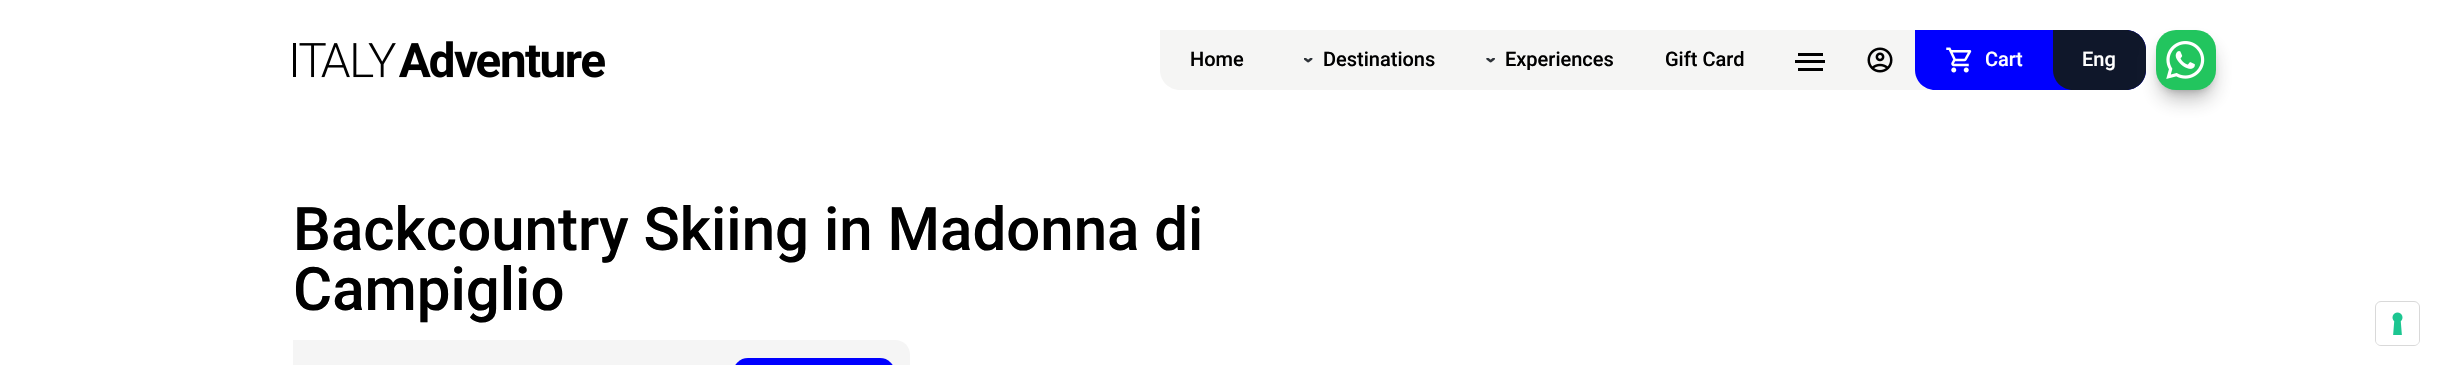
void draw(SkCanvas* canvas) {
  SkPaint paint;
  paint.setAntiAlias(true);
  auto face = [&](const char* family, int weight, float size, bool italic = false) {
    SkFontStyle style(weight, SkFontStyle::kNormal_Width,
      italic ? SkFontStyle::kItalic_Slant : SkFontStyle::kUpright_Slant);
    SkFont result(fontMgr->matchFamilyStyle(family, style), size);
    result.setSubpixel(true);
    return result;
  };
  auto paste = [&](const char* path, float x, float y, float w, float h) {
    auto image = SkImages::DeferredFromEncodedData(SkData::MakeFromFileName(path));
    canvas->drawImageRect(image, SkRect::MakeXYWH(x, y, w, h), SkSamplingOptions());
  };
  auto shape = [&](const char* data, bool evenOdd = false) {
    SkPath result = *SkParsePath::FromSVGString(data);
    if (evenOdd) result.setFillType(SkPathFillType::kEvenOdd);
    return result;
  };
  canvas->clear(0xffffffff);
  paste("img/1.png", 293, 41, 312, 37);
  paint.setColor(0xfff5f5f4);
  canvas->drawPath(shape("M1160 30H2126C2137 30 2146 39 2146 50V70C2146 81 2137 90 2126 90H1180C1169 90 1160 81 1160 70Z"), paint);
  paste("img/2.png", 1304, 58, 9, 5);
  paste("img/3.png", 1486, 58, 9, 5);
  {
    const struct { float x, y, w, h; SkColor color; } items[] = {
      {1798, 53, 25, 3, 0xff000000},
      {1795, 60, 30, 3, 0xff000000},
      {1798, 68, 25, 3, 0xff000000},
    };
    for (auto [x, y, w, h, color] : items) {
      paint.setColor(color);
      canvas->drawRect(SkRect::MakeXYWH(x, y, w, h), paint);
    }
  }
  paste("img/4.png", 1867, 47, 26, 26);
  paint.setColor(0xff0000ff);
  canvas->drawPath(shape("M1915 30H2053V90H1935C1924 90 1915 81 1915 70Z"), paint);
  paste("img/5.png", 1946, 47, 26, 26);
  canvas->drawPath(shape("M2053 30H2126C2137 30 2146 39 2146 50V70C2146 81 2137 90 2126 90H2053Z"), paint);
  paint.setColor(0xff0f172a);
  canvas->drawPath(shape("M2053 30H2126C2137 30 2146 39 2146 50V70C2146 81 2137 90 2126 90H2073C2062 90 2053 81 2053 70Z"), paint);
  paint.setColor(0x4d262626);
  paint.setMaskFilter(SkMaskFilter::MakeBlur(kNormal_SkBlurStyle, 4));
  canvas->drawRoundRect(SkRect::MakeXYWH(2161, 40, 50, 50), 15, 15, paint);
  paint.setMaskFilter(nullptr);
  paint.setMaskFilter(SkMaskFilter::MakeBlur(kNormal_SkBlurStyle, 9.5f));
  canvas->drawRoundRect(SkRect::MakeXYWH(2160, 46, 53, 53), 16, 16, paint);
  paint.setMaskFilter(nullptr);
  paint.setColor(0xff22c55e);
  canvas->drawRoundRect(SkRect::MakeXYWH(2156, 30, 60, 60), 20, 20, paint);
  paste("img/6.png", 2166, 41, 39, 38);
  paint.setColor(0xfff5f5f5);
  canvas->drawPath(shape("M293 340H895C903.5 340 910 346.5 910 355V365C910 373.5 903.5 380 895 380H308C299.5 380 293 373.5 293 365Z"), paint);
  paint.setColor(0xff0000ff);
  canvas->drawRoundRect(SkRect::MakeXYWH(733, 358, 162, 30), 22.5f, 22.5f, paint);
  paint.setStroke(true);
  paint.setStrokeWidth(1);
  paint.setColor(0xffd9d9d9);
  canvas->drawRoundRect(SkRect::MakeXYWH(2375.5f, 301.5f, 44, 44), 5.5f, 5.5f, paint);
  paint.setStroke(false);
  paint.setColor(0xffffffff);
  canvas->drawRoundRect(SkRect::MakeXYWH(2376, 303, 43, 42), 5, 5, paint);
  paste("img/7.png", 2392, 312, 11, 23);
  auto f0 = face("Roboto", 500, 20);
  paint.setColor(0xff000000);
  {
    const struct { const char* s; float x, y; } items[] = {
      {"Home", 1190, 66},
      {"Destinations", 1323, 66},
      {"Experiences", 1505, 66},
      {"Gift Card", 1665, 66},
    };
    for (auto [s, x, y] : items) {
      canvas->drawString(s, x, y, f0, paint);
    }
  }
  paint.setColor(0xffffffff);
  canvas->drawString("Cart", 1985, 66, f0, paint);
  canvas->drawString("Eng", 2082, 66, f0, paint);
  auto f1 = face("Roboto", 500, 60);
  paint.setColor(0xff000000);
  canvas->drawString("Backcountry Skiing in Madonna di", 293, 250, f1, paint);
  canvas->drawString("Campiglio", 293, 310, f1, paint);
}
